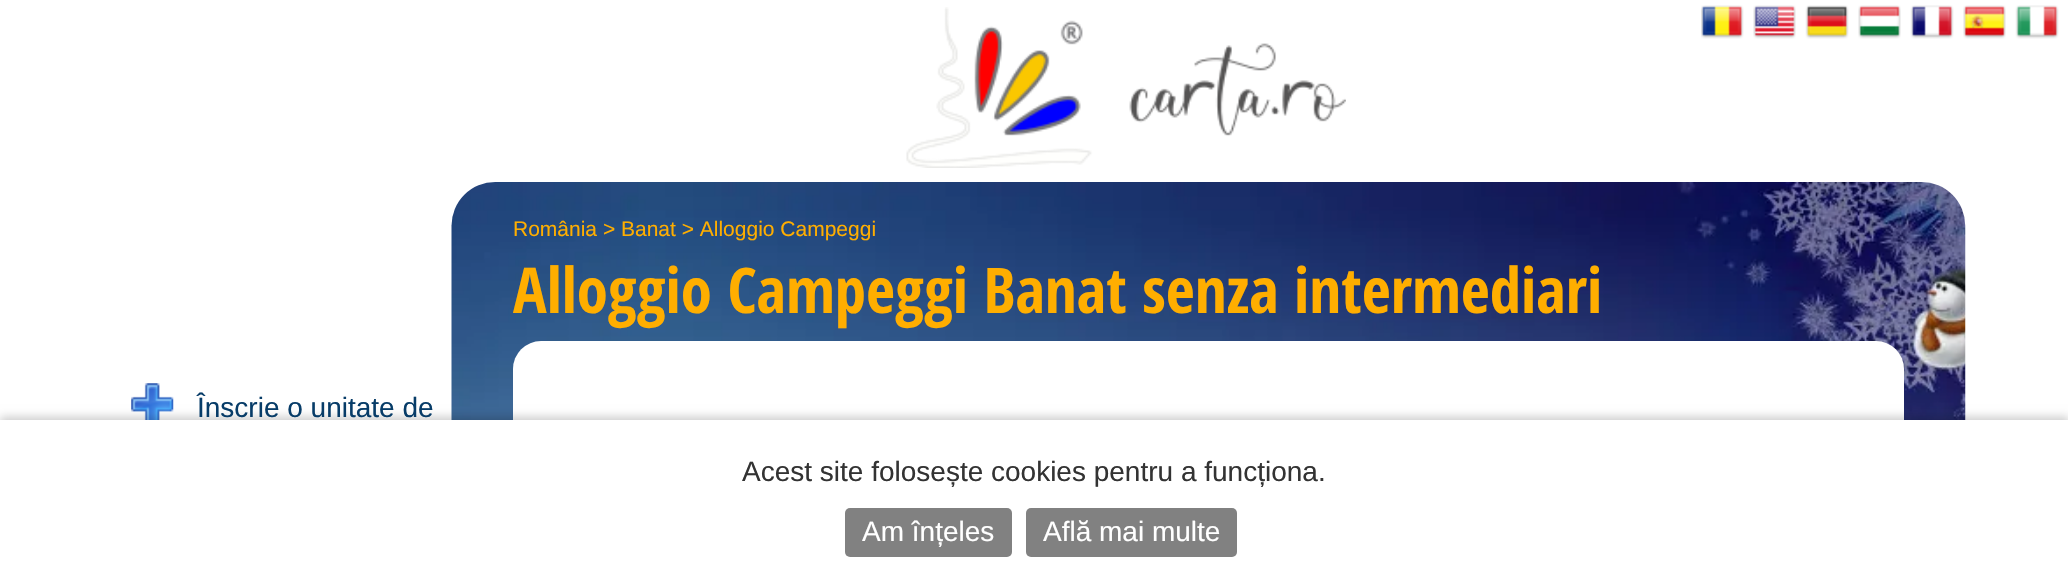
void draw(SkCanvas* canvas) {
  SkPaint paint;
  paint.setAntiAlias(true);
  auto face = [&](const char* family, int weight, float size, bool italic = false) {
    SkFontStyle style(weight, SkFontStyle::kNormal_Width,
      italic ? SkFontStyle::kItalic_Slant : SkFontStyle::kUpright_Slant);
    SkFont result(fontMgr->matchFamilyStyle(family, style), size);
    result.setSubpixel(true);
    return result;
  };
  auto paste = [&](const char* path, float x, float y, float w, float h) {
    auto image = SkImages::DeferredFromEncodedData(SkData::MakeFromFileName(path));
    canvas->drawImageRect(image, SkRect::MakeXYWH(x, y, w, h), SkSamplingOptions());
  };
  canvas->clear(0xffffffff);
  paste("img/1.png", 1701, 5, 358, 34);
  paste("img/2.png", 906, 7, 440, 161);
  paste("img/3.png", 451, 182, 1515, 238);
  paint.setColor(0xffffffff);
  canvas->drawRoundRect(SkRect::MakeXYWH(513, 341, 1391, 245), 28, 28, paint);
  paste("img/4.png", 131, 383, 43, 37);
  paint.setColor(0x33000000);
  paint.setMaskFilter(SkMaskFilter::MakeBlur(kNormal_SkBlurStyle, 4.5f));
  canvas->drawRect(SkRect::MakeXYWH(0, 417, 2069, 154), paint);
  paint.setMaskFilter(nullptr);
  paint.setColor(0xffffffff);
  canvas->drawRect(SkRect::MakeXYWH(0, 420, 2068, 154), paint);
  paint.setColor(0xff818181);
  canvas->drawRoundRect(SkRect::MakeXYWH(845, 508, 167, 49), 5, 5, paint);
  canvas->drawRoundRect(SkRect::MakeXYWH(1026, 508, 211, 49), 5, 5, paint);
  auto f0 = face("Liberation Sans", 400, 21);
  paint.setColor(0xffffae00);
  canvas->drawString("România > Banat > Alloggio Campeggi", 513, 236, f0, paint);
  auto f1 = face("Open Sans Condensed", 700, 63);
  canvas->drawString("Alloggio Campeggi Banat senza intermediari", 513, 313, f1, paint);
  auto f2 = face("Liberation Sans", 400, 28);
  paint.setColor(0xff073c68);
  canvas->drawString("Înscrie o unitate de", 197, 417, f2, paint);
  paint.setColor(0xff333333);
  canvas->drawString("Acest site folosește cookies pentru a funcționa.", 742, 481, f2, paint);
  paint.setColor(0xffffffff);
  canvas->drawString("Am înțeles", 862, 541, f2, paint);
  canvas->drawString("Află mai multe", 1043, 541, f2, paint);
}
